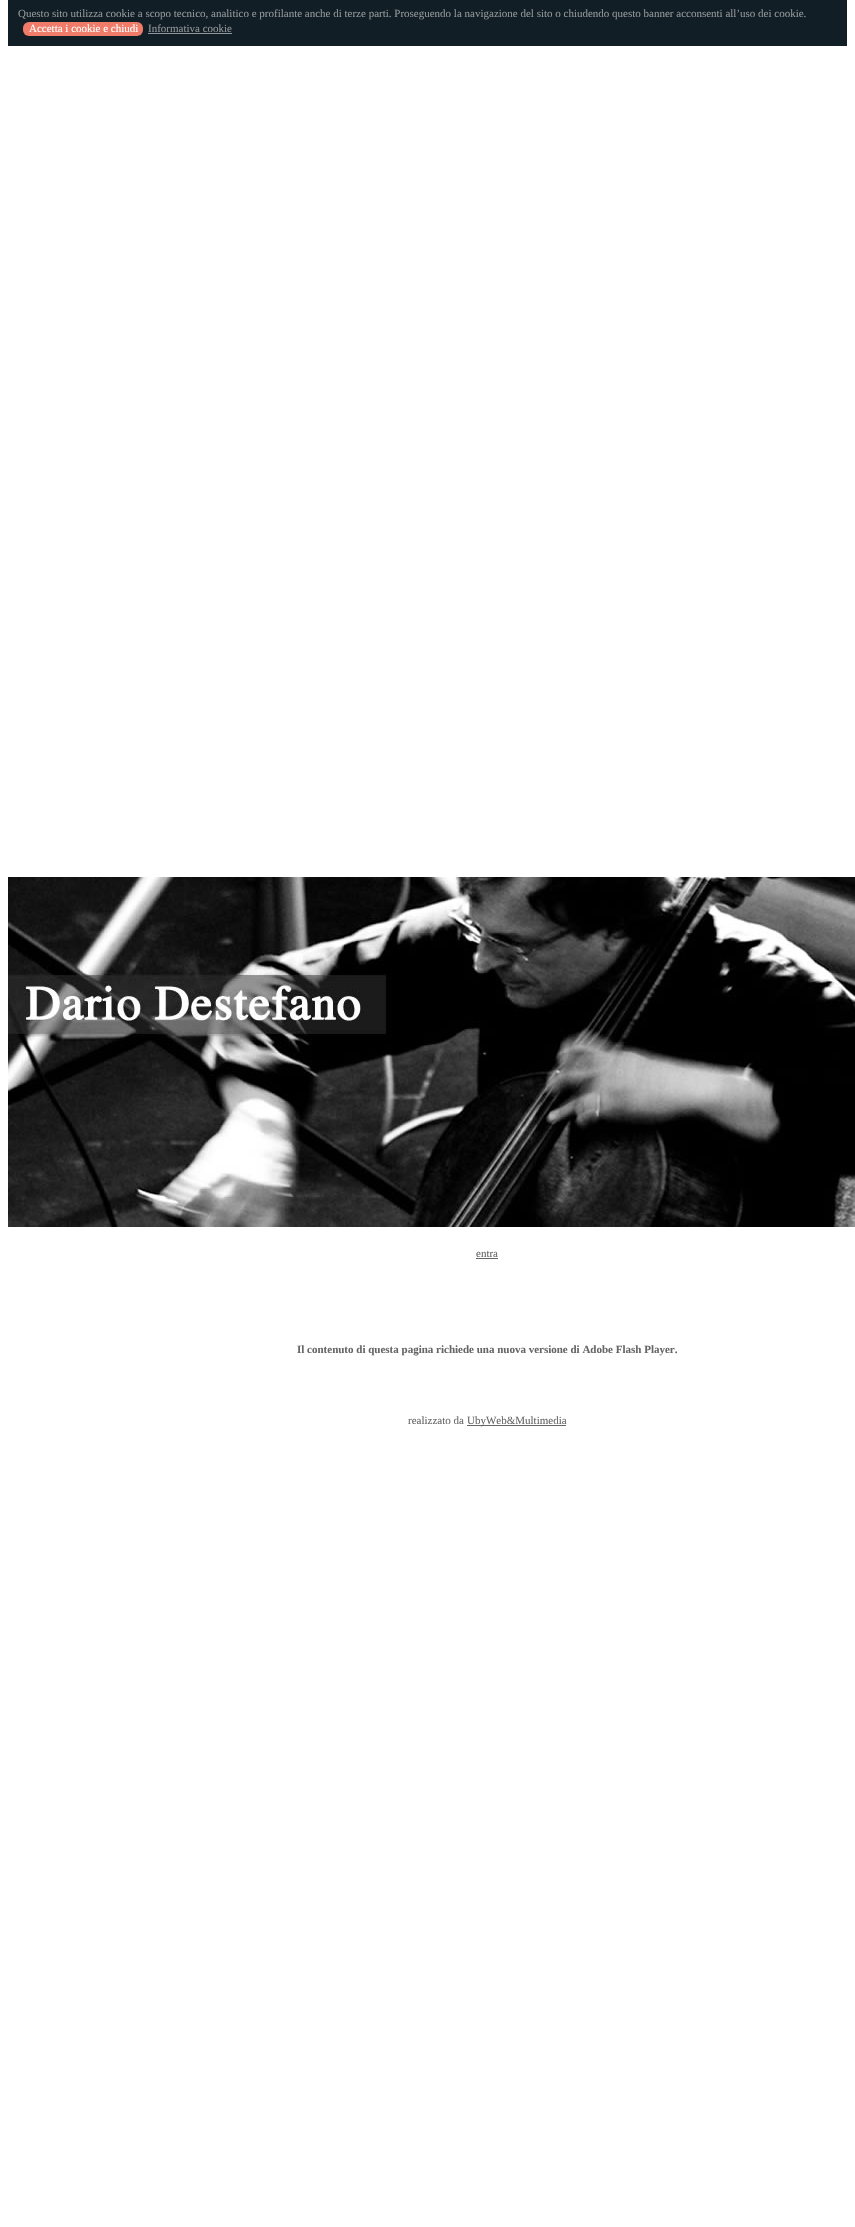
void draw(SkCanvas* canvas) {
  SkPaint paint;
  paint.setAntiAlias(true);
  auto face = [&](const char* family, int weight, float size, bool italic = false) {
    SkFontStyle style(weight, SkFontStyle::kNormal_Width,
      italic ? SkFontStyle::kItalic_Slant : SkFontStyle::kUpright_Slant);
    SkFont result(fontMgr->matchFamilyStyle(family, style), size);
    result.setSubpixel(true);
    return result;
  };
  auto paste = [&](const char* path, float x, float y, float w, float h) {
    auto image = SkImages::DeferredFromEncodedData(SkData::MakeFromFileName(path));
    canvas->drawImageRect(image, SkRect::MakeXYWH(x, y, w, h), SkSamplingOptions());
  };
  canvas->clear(0xffffffff);
  paint.setColor(0xff121e25);
  canvas->drawRect(SkRect::MakeXYWH(8, 0, 839, 46), paint);
  paint.setColor(0xfff07b68);
  canvas->drawRoundRect(SkRect::MakeXYWH(23, 22, 120, 14), 6, 6, paint);
  paint.setColor(0xff909699);
  canvas->drawRect(SkRect::MakeXYWH(148, 33, 84, 1), paint);
  paste("img/1.png", 8, 877, 847, 350);
  paint.setColor(0xff666666);
  canvas->drawRect(SkRect::MakeXYWH(476, 1258, 22, 1), paint);
  canvas->drawRect(SkRect::MakeXYWH(467, 1425, 99, 1), paint);
  auto f0 = face("Liberation Serif", 400, 11);
  paint.setColor(0xff909699);
  canvas->drawString("Questo sito utilizza cookie a scopo tecnico, analitico e profilante anche di terze parti. Proseguendo la navigazione del sito o chiudendo questo banner acconsenti all’uso dei cookie.", 18, 17, f0, paint);
  paint.setColor(0xffffffff);
  canvas->drawString("Accetta i cookie e chiudi", 29, 32, f0, paint);
  paint.setColor(0xff909699);
  canvas->drawString("Informativa cookie", 148, 32, f0, paint);
  paint.setColor(0xff666666);
  canvas->drawString("entra", 476, 1257, f0, paint);
  auto f1 = face("Liberation Serif", 700, 11);
  canvas->drawString("Il contenuto di questa pagina richiede una nuova versione di Adobe Flash Player.", 297, 1353, f1, paint);
  canvas->drawString("realizzato da", 408, 1424, f0, paint);
  canvas->drawString("UbyWeb&Multimedia", 467, 1424, f0, paint);
}
